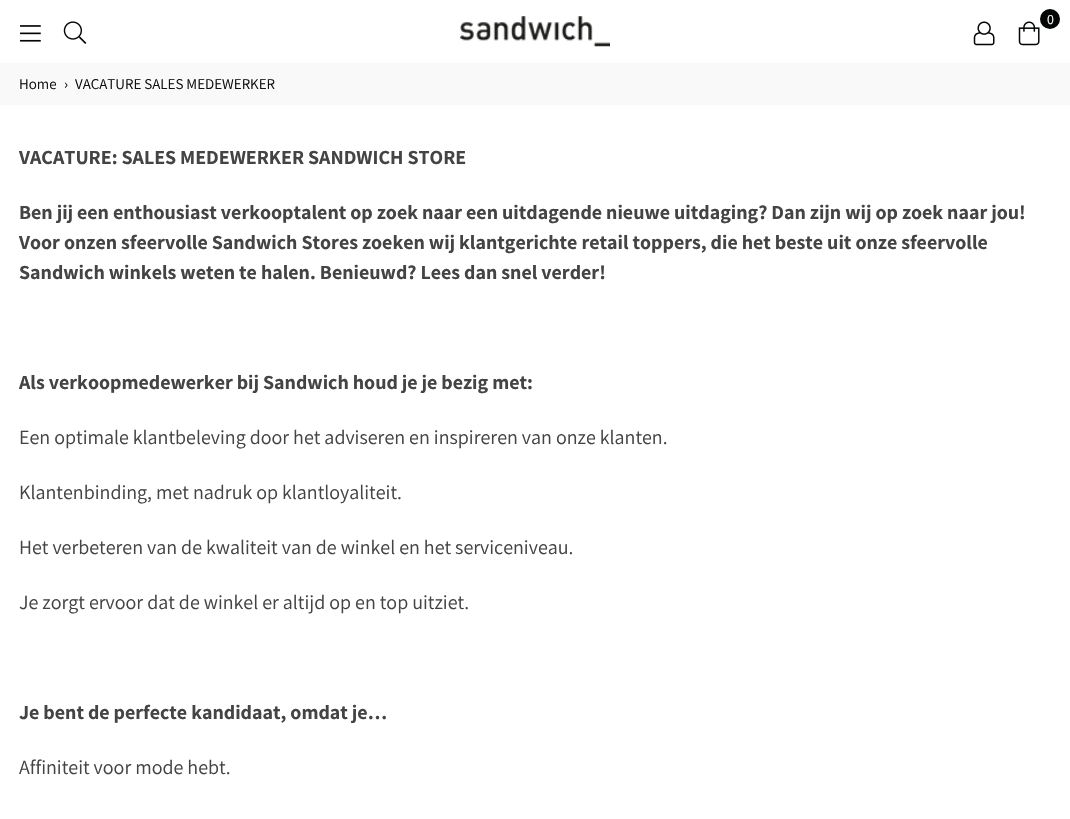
void draw(SkCanvas* canvas) {
  SkPaint paint;
  paint.setAntiAlias(true);
  auto face = [&](const char* family, int weight, float size, bool italic = false) {
    SkFontStyle style(weight, SkFontStyle::kNormal_Width,
      italic ? SkFontStyle::kItalic_Slant : SkFontStyle::kUpright_Slant);
    SkFont result(fontMgr->matchFamilyStyle(family, style), size);
    result.setSubpixel(true);
    return result;
  };
  auto paste = [&](const char* path, float x, float y, float w, float h) {
    auto image = SkImages::DeferredFromEncodedData(SkData::MakeFromFileName(path));
    canvas->drawImageRect(image, SkRect::MakeXYWH(x, y, w, h), SkSamplingOptions());
  };
  canvas->clear(0xffffffff);
  paste("img/1.png", 20, 25, 21, 17);
  paste("img/2.png", 63, 21, 24, 23);
  paste("img/3.png", 460, 16, 150, 31);
  paint.setColor(0xff030505);
  canvas->drawCircle(1050, 19, 10, paint);
  paste("img/4.png", 1018, 21, 22, 25);
  paste("img/5.png", 973, 21, 22, 25);
  paint.setColor(0xfff9f9f9);
  canvas->drawRect(SkRect::MakeXYWH(0, 63, 1070, 42), paint);
  auto f0 = face("Assistant", 400, 14);
  paint.setColor(0xffffffff);
  canvas->drawString("0", 1047, 24, f0, paint);
  auto f1 = face("Assistant", 400, 15);
  paint.setColor(0xff111111);
  {
    const struct { const char* s; float x, y; } items[] = {
      {"Home", 19, 89},
      {"›", 64, 89},
      {"VACATURE SALES MEDEWERKER", 75, 89},
    };
    for (auto [s, x, y] : items) {
      canvas->drawString(s, x, y, f1, paint);
    }
  }
  auto f2 = face("Assistant", 700, 20);
  paint.setColor(0xff444444);
  {
    const struct { const char* s; float x, y; } items[] = {
      {"VACATURE: SALES MEDEWERKER SANDWICH STORE", 19, 164},
      {"Ben jij een enthousiast verkooptalent op zoek naar een uitdagende nieuwe uitdaging? Dan zijn wij op zoek naar jou!", 19, 219},
      {"Voor onzen sfeervolle Sandwich Stores zoeken wij klantgerichte retail toppers, die het beste uit onze sfeervolle", 19, 249},
      {"Sandwich winkels weten te halen. Benieuwd? Lees dan snel verder!", 19, 279},
      {"Als verkoopmedewerker bij Sandwich houd je je bezig met:", 19, 389},
    };
    for (auto [s, x, y] : items) {
      canvas->drawString(s, x, y, f2, paint);
    }
  }
  auto f3 = face("Assistant", 400, 20);
  {
    const struct { const char* s; float x, y; } items[] = {
      {"Een optimale klantbeleving door het adviseren en inspireren van onze klanten.", 19, 444},
      {"Klantenbinding, met nadruk op klantloyaliteit.", 19, 499},
      {"Het verbeteren van de kwaliteit van de winkel en het serviceniveau.", 19, 554},
      {"Je zorgt ervoor dat de winkel er altijd op en top uitziet.", 19, 609},
    };
    for (auto [s, x, y] : items) {
      canvas->drawString(s, x, y, f3, paint);
    }
  }
  canvas->drawString("Je bent de perfecte kandidaat, omdat je…", 19, 719, f2, paint);
  canvas->drawString("Affiniteit voor mode hebt.", 19, 774, f3, paint);
}
